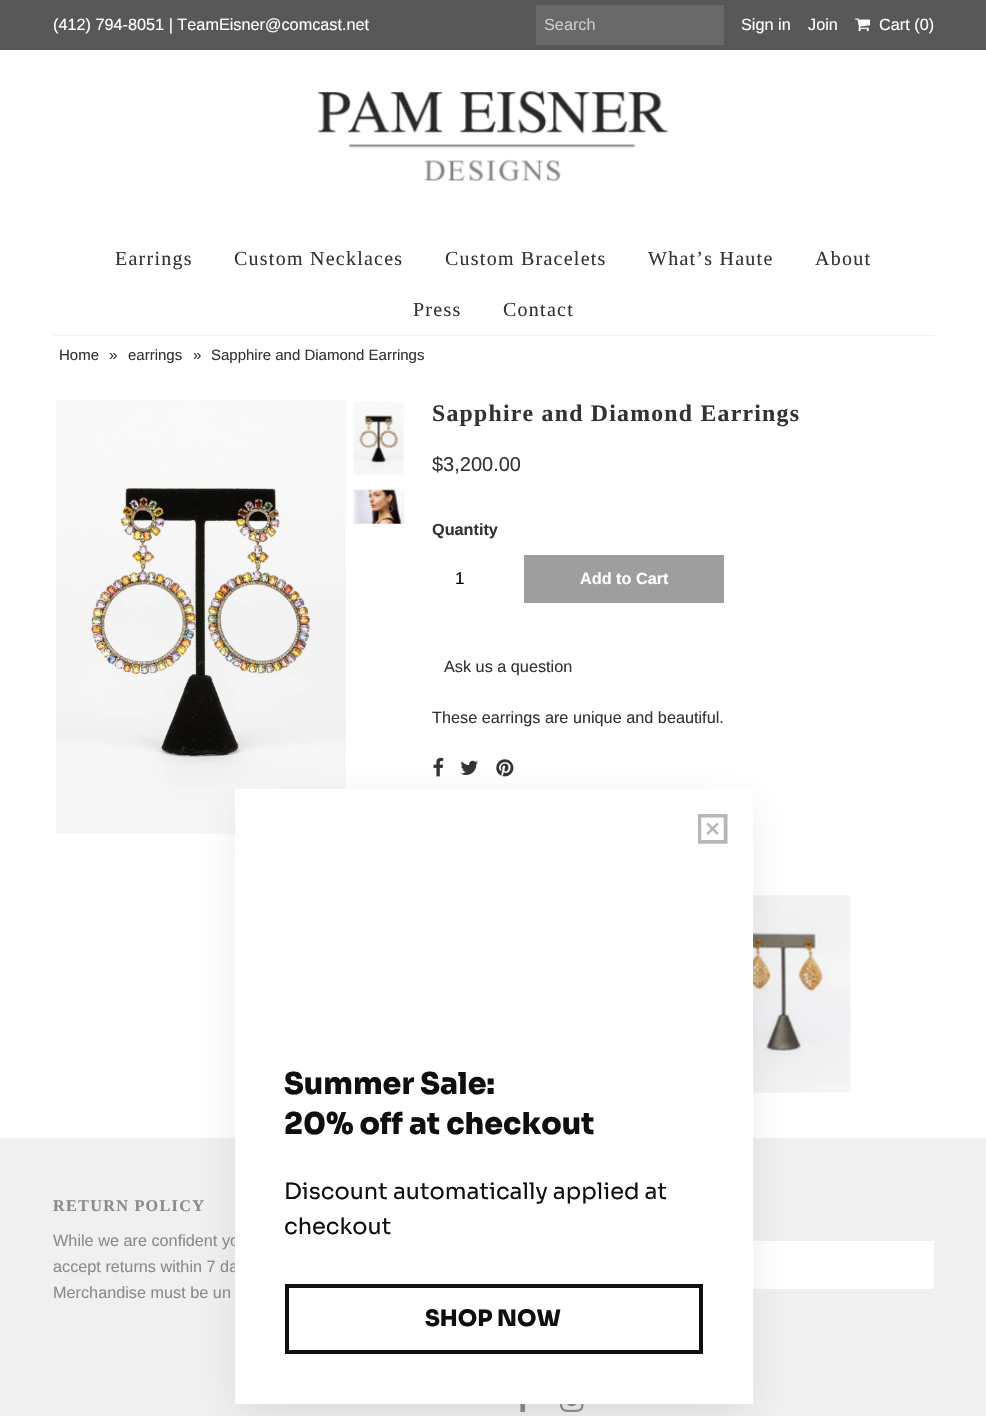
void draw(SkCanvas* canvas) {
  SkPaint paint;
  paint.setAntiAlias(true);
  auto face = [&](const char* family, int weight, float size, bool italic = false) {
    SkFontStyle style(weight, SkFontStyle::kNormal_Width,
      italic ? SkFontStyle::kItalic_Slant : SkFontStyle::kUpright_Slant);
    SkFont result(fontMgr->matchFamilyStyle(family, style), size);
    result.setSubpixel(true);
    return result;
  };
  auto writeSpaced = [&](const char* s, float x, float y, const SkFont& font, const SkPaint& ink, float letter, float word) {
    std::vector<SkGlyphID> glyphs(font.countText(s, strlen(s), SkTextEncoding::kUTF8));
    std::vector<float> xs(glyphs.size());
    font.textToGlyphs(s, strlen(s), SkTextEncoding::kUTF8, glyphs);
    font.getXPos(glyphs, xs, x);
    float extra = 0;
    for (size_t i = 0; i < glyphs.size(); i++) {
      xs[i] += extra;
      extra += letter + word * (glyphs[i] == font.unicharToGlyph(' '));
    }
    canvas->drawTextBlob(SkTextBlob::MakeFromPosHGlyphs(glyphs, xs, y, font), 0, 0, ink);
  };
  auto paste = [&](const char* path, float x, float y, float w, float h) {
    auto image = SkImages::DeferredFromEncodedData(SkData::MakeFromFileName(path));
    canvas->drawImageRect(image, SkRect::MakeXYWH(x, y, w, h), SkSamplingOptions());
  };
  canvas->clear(0xffffffff);
  paint.setColor(0xff585858);
  canvas->drawRect(SkRect::MakeXYWH(0, 0, 986, 50), paint);
  paint.setColor(0xff696969);
  canvas->drawRect(SkRect::MakeXYWH(536, 5, 188, 40), paint);
  paste("img/1.png", 855, 18, 16, 14);
  paste("img/2.png", 318, 91, 351, 91);
  paint.setColor(0xfff2f2f2);
  canvas->drawRect(SkRect::MakeXYWH(53, 335, 881, 1), paint);
  paste("img/3.png", 56, 400, 290, 434);
  paste("img/4.png", 353, 402, 51, 73);
  paste("img/5.png", 353, 489, 52, 35);
  paint.setColor(0xff9e9e9e);
  canvas->drawRect(SkRect::MakeXYWH(524, 555, 200, 48), paint);
  paste("img/6.png", 433, 757, 11, 20);
  paste("img/7.png", 460, 760, 18, 15);
  paste("img/8.png", 496, 759, 18, 18);
  paste("img/9.png", 753, 895, 98, 198);
  paint.setColor(0xfff0f0f0);
  canvas->drawRect(SkRect::MakeXYWH(0, 1138, 986, 278), paint);
  paint.setColor(0xffffffff);
  canvas->drawRect(SkRect::MakeXYWH(753, 1241, 181, 48), paint);
  paste("img/10.png", 520, 1404, 6, 8);
  paste("img/11.png", 560, 1404, 24, 8);
  paint.setColor(0x26363d4d);
  paint.setMaskFilter(SkMaskFilter::MakeBlur(kNormal_SkBlurStyle, 20));
  canvas->drawRect(SkRect::MakeXYWH(241, 809, 505, 602), paint);
  paint.setMaskFilter(nullptr);
  auto f0 = face("Liberation Sans", 400, 16.25f);
  paint.setColor(0xffffffff);
  canvas->drawString("(412) 794-8051 | TeamEisner@comcast.net", 53, 30, f0, paint);
  paint.setColor(0xffcccccc);
  canvas->drawString("Search", 544, 30, f0, paint);
  paint.setColor(0xffffffff);
  {
    const struct { const char* s; float x, y; } items[] = {
      {"Sign in", 741, 30},
      {"Join", 808, 30},
      {"Cart (0)", 879, 30},
    };
    for (auto [s, x, y] : items) {
      canvas->drawString(s, x, y, f0, paint);
    }
  }
  auto f1 = face("Liberation Serif", 400, 20);
  paint.setColor(0xff333333);
  {
    const struct { const char* s; float x, y; } items[] = {
      {"Earrings", 115, 265},
      {"Custom Necklaces", 234, 265},
      {"Custom Bracelets", 445, 265},
      {"What’s Haute", 648, 265},
      {"About", 815, 265},
      {"Press", 413, 316},
      {"Contact", 503, 316},
    };
    for (auto [s, x, y] : items) {
      writeSpaced(s, x, y, f1, paint, 1.25f, 0);
    }
  }
  auto f2 = face("Liberation Sans", 400, 15);
  {
    const struct { const char* s; float x, y; } items[] = {
      {"Home", 59, 360},
      {"»", 109, 360},
      {"earrings", 128, 360},
      {"»", 193, 360},
      {"Sapphire and Diamond Earrings", 211, 360},
    };
    for (auto [s, x, y] : items) {
      canvas->drawString(s, x, y, f2, paint);
    }
  }
  auto f3 = face("Liberation Serif", 700, 23.75f);
  writeSpaced("Sapphire and Diamond Earrings", 432, 421, f3, paint, 1.25f, 0);
  auto f4 = face("Liberation Sans", 400, 20);
  canvas->drawString("$3,200.00", 432, 471, f4, paint);
  auto f5 = face("Liberation Sans", 700, 16.25f);
  canvas->drawString("Quantity", 432, 535, f5, paint);
  auto f6 = face("Liberation Sans", 400, 17);
  paint.setColor(0xff000000);
  canvas->drawString("1", 455, 584, f6, paint);
  paint.setColor(0xffffffff);
  canvas->drawString("Add to Cart", 580, 584, f5, paint);
  paint.setColor(0xff333333);
  canvas->drawString("Ask us a question", 444, 672, f0, paint);
  canvas->drawString("These earrings are unique and beautiful.", 432, 723, f0, paint);
  auto f7 = face("Liberation Serif", 700, 16.25f);
  paint.setColor(0xff8c8989);
  writeSpaced("RETURN POLICY", 53, 1211, f7, paint, 1.25f, 0);
  {
    const struct { const char* s; float x, y; } items[] = {
      {"While we are confident yo", 53, 1246},
      {"accept returns within 7 da", 53, 1272},
      {"Merchandise must be un", 53, 1298},
    };
    for (auto [s, x, y] : items) {
      canvas->drawString(s, x, y, f0, paint);
    }
  }
  paint.setColor(0xffffffff);
  canvas->drawRect(SkRect::MakeXYWH(235, 789, 518, 615), paint);
  paste("img/12.png", 698, 814, 30, 30);
  auto f8 = face("Sora", 800, 30);
  paint.setColor(0xff0f0f0f);
  canvas->drawString("Summer Sale:", 284, 1094, f8, paint);
  canvas->drawString("20% off at checkout", 284, 1134, f8, paint);
  auto f9 = face("Sora", 400, 22.5f);
  canvas->drawString("Discount automatically applied at", 284, 1199, f9, paint);
  canvas->drawString("checkout", 284, 1234, f9, paint);
  paint.setStroke(true);
  paint.setStrokeWidth(4);
  canvas->drawRect(SkRect::MakeXYWH(287, 1286, 414, 66), paint);
  auto f10 = face("Sora", 800, 22.5f);
  paint.setStroke(false);
  canvas->drawString("SHOP NOW", 425, 1326, f10, paint);
}
